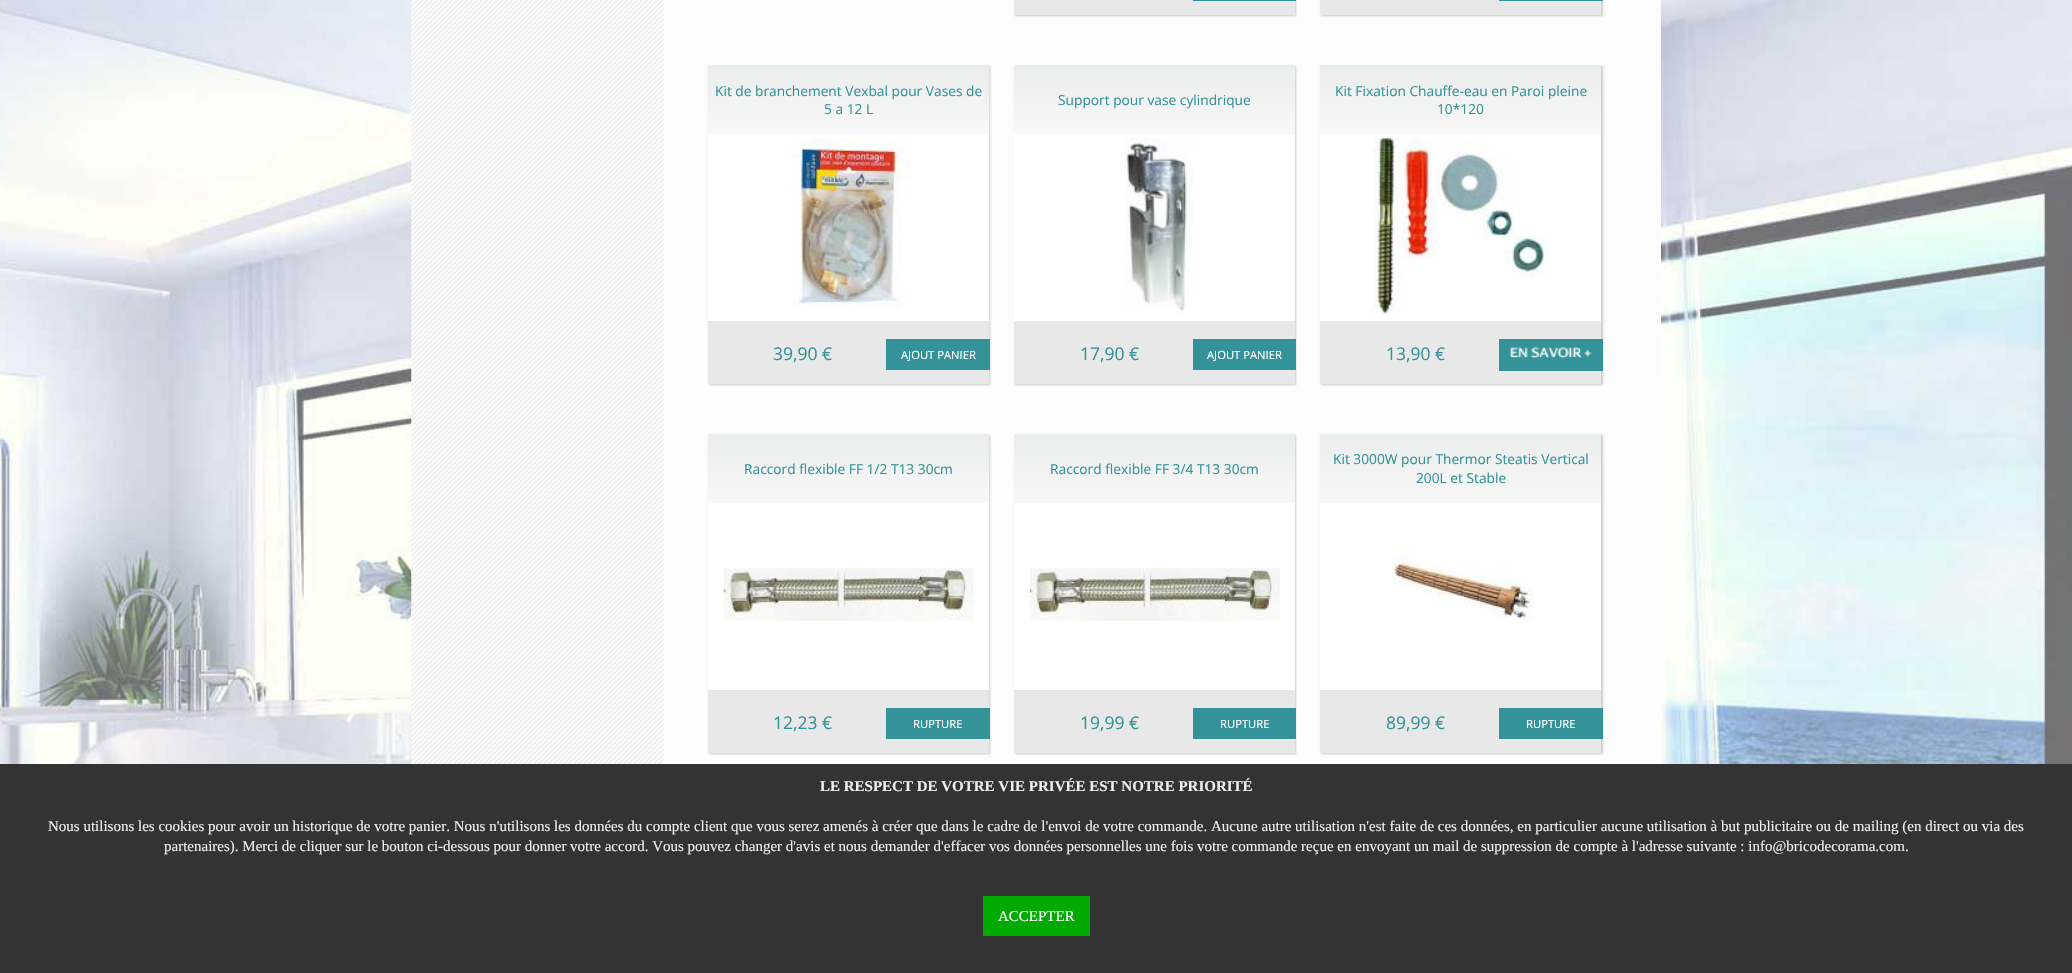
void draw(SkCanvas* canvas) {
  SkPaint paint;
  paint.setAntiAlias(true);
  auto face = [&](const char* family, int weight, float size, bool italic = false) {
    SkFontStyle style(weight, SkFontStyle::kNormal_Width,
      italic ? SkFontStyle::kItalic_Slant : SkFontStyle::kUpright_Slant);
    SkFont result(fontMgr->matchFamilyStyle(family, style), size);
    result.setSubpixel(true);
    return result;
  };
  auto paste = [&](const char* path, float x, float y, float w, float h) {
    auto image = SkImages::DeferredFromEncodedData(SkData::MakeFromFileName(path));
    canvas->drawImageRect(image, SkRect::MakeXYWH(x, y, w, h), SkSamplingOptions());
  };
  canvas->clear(0xffffffff);
  paste("img/1.png", 0, 0, 2072, 764);
  paste("img/2.png", 411, 0, 253, 764);
  {
    const SkColor colors[] = {0xfff5f5f5, 0xffffffff};
    const float stops[] = {0, 1};
    const SkPoint ends[] = {{1162, -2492}, {1163, 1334}};
    paint.setShader(SkGradientShader::MakeLinear(ends, colors, stops, 2, SkTileMode::kClamp));
    paint.setAlpha(255);
  }
  canvas->drawRect(SkRect::MakeXYWH(664, 0, 997, 764), paint);
  paint.setShader(nullptr);
  paint.setColor(0xffcccccc);
  paint.setMaskFilter(SkMaskFilter::MakeBlur(kNormal_SkBlurStyle, 1));
  canvas->drawRect(SkRect::MakeXYWH(1015, -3, 281, 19), paint);
  paint.setMaskFilter(nullptr);
  paint.setColor(0xffe8e8e8);
  canvas->drawRect(SkRect::MakeXYWH(1014, 0, 281, 15), paint);
  paint.setColor(0xff339398);
  canvas->drawRect(SkRect::MakeXYWH(1193, 0, 103, 1), paint);
  paint.setColor(0xffcccccc);
  paint.setMaskFilter(SkMaskFilter::MakeBlur(kNormal_SkBlurStyle, 1));
  canvas->drawRect(SkRect::MakeXYWH(1321, -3, 282, 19), paint);
  paint.setMaskFilter(nullptr);
  paint.setColor(0xffe8e8e8);
  canvas->drawRect(SkRect::MakeXYWH(1320, 0, 281, 15), paint);
  paint.setColor(0xff339398);
  canvas->drawRect(SkRect::MakeXYWH(1499, 0, 104, 1), paint);
  paint.setColor(0xffcccccc);
  paint.setMaskFilter(SkMaskFilter::MakeBlur(kNormal_SkBlurStyle, 1));
  canvas->drawRect(SkRect::MakeXYWH(709, 66, 281, 319), paint);
  paint.setMaskFilter(nullptr);
  paint.setColor(0xffffffff);
  canvas->drawRect(SkRect::MakeXYWH(708, 134, 281, 187), paint);
  {
    const SkColor colors[] = {0xffebecec, 0xfff8f8f8};
    const float stops[] = {0, 1};
    const SkPoint ends[] = {{848, 65}, {848, 134}};
    paint.setShader(SkGradientShader::MakeLinear(ends, colors, stops, 2, SkTileMode::kClamp));
    paint.setAlpha(255);
  }
  canvas->drawRect(SkRect::MakeXYWH(708, 65, 281, 69), paint);
  paste("img/3.png", 791, 138, 121, 173);
  paint.setShader(nullptr);
  paint.setColor(0xffe8e8e8);
  canvas->drawRect(SkRect::MakeXYWH(708, 321, 281, 63), paint);
  paint.setColor(0xff339398);
  canvas->drawRect(SkRect::MakeXYWH(886, 339, 104, 31), paint);
  paint.setColor(0xffcccccc);
  paint.setMaskFilter(SkMaskFilter::MakeBlur(kNormal_SkBlurStyle, 1));
  canvas->drawRect(SkRect::MakeXYWH(1015, 66, 281, 319), paint);
  paint.setMaskFilter(nullptr);
  paint.setColor(0xffffffff);
  canvas->drawRect(SkRect::MakeXYWH(1014, 134, 281, 187), paint);
  {
    const SkColor colors[] = {0xffebecec, 0xfff8f8f8};
    const float stops[] = {0, 1};
    const SkPoint ends[] = {{1154, 65}, {1154, 134}};
    paint.setShader(SkGradientShader::MakeLinear(ends, colors, stops, 2, SkTileMode::kClamp));
    paint.setAlpha(255);
  }
  canvas->drawRect(SkRect::MakeXYWH(1014, 65, 281, 69), paint);
  paste("img/4.png", 1125, 138, 69, 175);
  paint.setShader(nullptr);
  paint.setColor(0xffe8e8e8);
  canvas->drawRect(SkRect::MakeXYWH(1014, 321, 281, 63), paint);
  paint.setColor(0xff339398);
  canvas->drawRect(SkRect::MakeXYWH(1193, 339, 103, 31), paint);
  paint.setColor(0xffcccccc);
  paint.setMaskFilter(SkMaskFilter::MakeBlur(kNormal_SkBlurStyle, 1));
  canvas->drawRect(SkRect::MakeXYWH(1321, 66, 282, 319), paint);
  paint.setMaskFilter(nullptr);
  paint.setColor(0xffffffff);
  canvas->drawRect(SkRect::MakeXYWH(1320, 134, 281, 187), paint);
  {
    const SkColor colors[] = {0xffebecec, 0xfff8f8f8};
    const float stops[] = {0, 1};
    const SkPoint ends[] = {{1461, 65}, {1461, 134}};
    paint.setShader(SkGradientShader::MakeLinear(ends, colors, stops, 2, SkTileMode::kClamp));
    paint.setAlpha(255);
  }
  canvas->drawRect(SkRect::MakeXYWH(1320, 65, 281, 69), paint);
  paste("img/5.png", 1373, 138, 176, 176);
  paint.setShader(nullptr);
  paint.setColor(0xffe8e8e8);
  canvas->drawRect(SkRect::MakeXYWH(1320, 321, 281, 63), paint);
  paint.setColor(0xff339398);
  canvas->drawRect(SkRect::MakeXYWH(1499, 339, 104, 32), paint);
  paste("img/6.png", 1510, 346, 82, 13);
  paint.setColor(0xffcccccc);
  paint.setMaskFilter(SkMaskFilter::MakeBlur(kNormal_SkBlurStyle, 1));
  canvas->drawRect(SkRect::MakeXYWH(709, 435, 281, 319), paint);
  paint.setMaskFilter(nullptr);
  paint.setColor(0xffffffff);
  canvas->drawRect(SkRect::MakeXYWH(708, 503, 281, 187), paint);
  {
    const SkColor colors[] = {0xffebecec, 0xfff8f8f8};
    const float stops[] = {0, 1};
    const SkPoint ends[] = {{848, 434}, {848, 503}};
    paint.setShader(SkGradientShader::MakeLinear(ends, colors, stops, 2, SkTileMode::kClamp));
    paint.setAlpha(255);
  }
  canvas->drawRect(SkRect::MakeXYWH(708, 434, 281, 69), paint);
  paste("img/7.png", 723, 568, 251, 53);
  paint.setShader(nullptr);
  paint.setColor(0xffe8e8e8);
  canvas->drawRect(SkRect::MakeXYWH(708, 690, 281, 63), paint);
  paint.setColor(0xff339398);
  canvas->drawRect(SkRect::MakeXYWH(886, 708, 104, 31), paint);
  paint.setColor(0xffcccccc);
  paint.setMaskFilter(SkMaskFilter::MakeBlur(kNormal_SkBlurStyle, 1));
  canvas->drawRect(SkRect::MakeXYWH(1015, 435, 281, 319), paint);
  paint.setMaskFilter(nullptr);
  paint.setColor(0xffffffff);
  canvas->drawRect(SkRect::MakeXYWH(1014, 503, 281, 187), paint);
  {
    const SkColor colors[] = {0xffebecec, 0xfff8f8f8};
    const float stops[] = {0, 1};
    const SkPoint ends[] = {{1154, 434}, {1154, 503}};
    paint.setShader(SkGradientShader::MakeLinear(ends, colors, stops, 2, SkTileMode::kClamp));
    paint.setAlpha(255);
  }
  canvas->drawRect(SkRect::MakeXYWH(1014, 434, 281, 69), paint);
  paste("img/8.png", 1030, 568, 250, 53);
  paint.setShader(nullptr);
  paint.setColor(0xffe8e8e8);
  canvas->drawRect(SkRect::MakeXYWH(1014, 690, 281, 63), paint);
  paint.setColor(0xff339398);
  canvas->drawRect(SkRect::MakeXYWH(1193, 708, 103, 31), paint);
  paint.setColor(0xffcccccc);
  paint.setMaskFilter(SkMaskFilter::MakeBlur(kNormal_SkBlurStyle, 1));
  canvas->drawRect(SkRect::MakeXYWH(1321, 435, 282, 319), paint);
  paint.setMaskFilter(nullptr);
  paint.setColor(0xffffffff);
  canvas->drawRect(SkRect::MakeXYWH(1320, 503, 281, 187), paint);
  {
    const SkColor colors[] = {0xffebecec, 0xfff8f8f8};
    const float stops[] = {0, 1};
    const SkPoint ends[] = {{1461, 434}, {1461, 503}};
    paint.setShader(SkGradientShader::MakeLinear(ends, colors, stops, 2, SkTileMode::kClamp));
    paint.setAlpha(255);
  }
  canvas->drawRect(SkRect::MakeXYWH(1320, 434, 281, 69), paint);
  paste("img/9.png", 1392, 547, 142, 74);
  paint.setShader(nullptr);
  {
    const struct { float x, y, w, h; SkColor color; } items[] = {
      {1320, 690, 281, 63, 0xffe8e8e8},
      {1499, 708, 104, 31, 0xff339398},
      {0, 764, 2072, 209, 0xff333333},
      {983, 896, 107, 40, 0xff00aa00},
    };
    for (auto [x, y, w, h, color] : items) {
      paint.setColor(color);
      canvas->drawRect(SkRect::MakeXYWH(x, y, w, h), paint);
    }
  }
  auto f0 = face("Open Sans", 400, 13.75f);
  paint.setColor(0xff339398);
  canvas->drawString("Kit de branchement Vexbal pour Vases de", 715, 96, f0, paint);
  canvas->drawString("5 a 12 L", 824, 114, f0, paint);
  auto f1 = face("Open Sans", 400, 17.5f);
  canvas->drawString("39,90 €", 773, 360, f1, paint);
  auto f2 = face("Open Sans", 400, 11.25f);
  paint.setColor(0xffffffff);
  canvas->drawString("AJOUT PANIER", 901, 359, f2, paint);
  paint.setColor(0xff339398);
  canvas->drawString("Support pour vase cylindrique", 1058, 105, f0, paint);
  canvas->drawString("17,90 €", 1080, 360, f1, paint);
  paint.setColor(0xffffffff);
  canvas->drawString("AJOUT PANIER", 1207, 359, f2, paint);
  paint.setColor(0xff339398);
  canvas->drawString("Kit Fixation Chauffe-eau en Paroi pleine", 1335, 96, f0, paint);
  canvas->drawString("10*120", 1437, 114, f0, paint);
  canvas->drawString("13,90 €", 1386, 360, f1, paint);
  canvas->drawString("Raccord flexible FF 1/2 T13 30cm", 744, 474, f0, paint);
  canvas->drawString("12,23 €", 773, 729, f1, paint);
  paint.setColor(0xffffffff);
  canvas->drawString("RUPTURE", 913, 728, f2, paint);
  paint.setColor(0xff339398);
  canvas->drawString("Raccord flexible FF 3/4 T13 30cm", 1050, 474, f0, paint);
  canvas->drawString("19,99 €", 1080, 729, f1, paint);
  paint.setColor(0xffffffff);
  canvas->drawString("RUPTURE", 1220, 728, f2, paint);
  paint.setColor(0xff339398);
  canvas->drawString("Kit 3000W pour Thermor Steatis Vertical", 1333, 464, f0, paint);
  canvas->drawString("200L et Stable", 1416, 483, f0, paint);
  canvas->drawString("89,99 €", 1386, 729, f1, paint);
  paint.setColor(0xffffffff);
  canvas->drawString("RUPTURE", 1526, 728, f2, paint);
  auto f3 = face("Liberation Serif", 700, 15);
  paint.setColor(0xffeeeeee);
  canvas->drawString("LE RESPECT DE VOTRE VIE PRIVÉE EST NOTRE PRIORITÉ", 820, 791, f3, paint);
  auto f4 = face("Liberation Serif", 400, 15);
  canvas->drawString("Nous utilisons les cookies pour avoir un historique de votre panier. Nous n'utilisons les données du compte client que vous serez amenés à créer que dans le cadre de l'envoi de votre commande. Aucune autre utilisation n'est faite de ces données, en particulier aucune utilisation à but publicitaire ou de mailing (en direct ou via des", 48, 831, f4, paint);
  canvas->drawString("partenaires). Merci de cliquer sur le bouton ci-dessous pour donner votre accord. Vous pouvez changer d'avis et nous demander d'effacer vos données personnelles une fois votre commande reçue en envoyant un mail de suppression de compte à l'adresse suivante : info@bricodecorama.com.", 164, 851, f4, paint);
  paint.setColor(0xffffffff);
  canvas->drawString("ACCEPTER", 998, 921, f4, paint);
}
